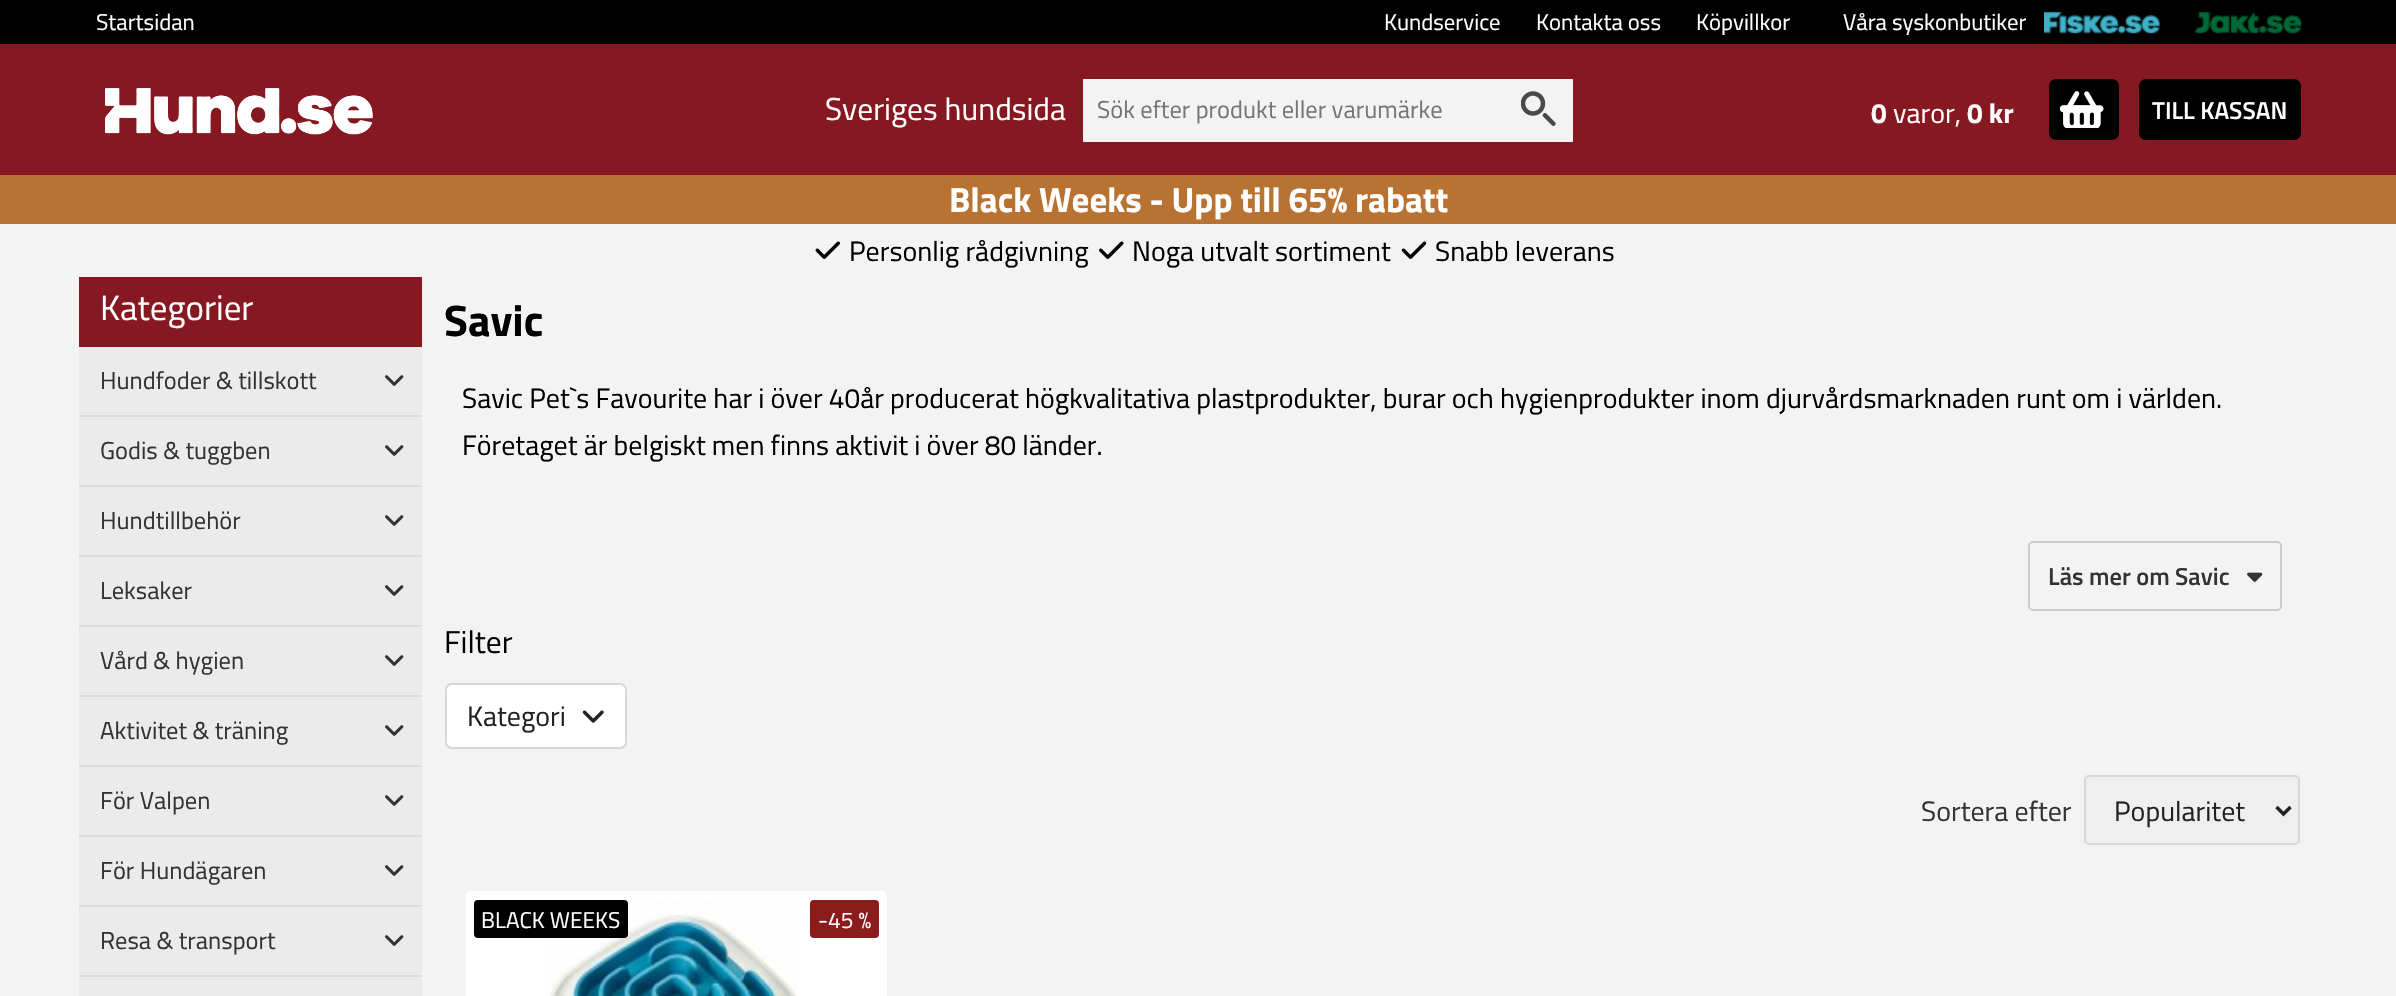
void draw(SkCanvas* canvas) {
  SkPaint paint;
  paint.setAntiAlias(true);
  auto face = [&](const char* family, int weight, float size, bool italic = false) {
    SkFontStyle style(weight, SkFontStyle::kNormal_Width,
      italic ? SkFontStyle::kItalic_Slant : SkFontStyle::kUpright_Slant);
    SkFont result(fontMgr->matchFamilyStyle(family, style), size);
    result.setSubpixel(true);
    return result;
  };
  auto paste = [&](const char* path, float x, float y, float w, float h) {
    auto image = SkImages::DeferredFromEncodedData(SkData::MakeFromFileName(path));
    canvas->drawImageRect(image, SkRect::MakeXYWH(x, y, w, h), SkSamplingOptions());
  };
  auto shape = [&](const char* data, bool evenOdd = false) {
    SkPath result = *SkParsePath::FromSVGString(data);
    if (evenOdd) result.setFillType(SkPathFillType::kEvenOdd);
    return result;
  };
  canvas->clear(0xfff3f3f3);
  paint.setColor(0xff000000);
  canvas->drawRect(SkRect::MakeXYWH(0, 0, 2396, 44), paint);
  paste("img/1.png", 2044, 12, 116, 22);
  paste("img/2.png", 2194, 12, 108, 22);
  paint.setColor(0xff851821);
  canvas->drawRect(SkRect::MakeXYWH(0, 44, 2396, 131), paint);
  paste("img/3.png", 105, 88, 268, 47);
  paint.setColor(0xfff3f3f3);
  canvas->drawRect(SkRect::MakeXYWH(1083, 79, 490, 63), paint);
  paste("img/4.png", 1521, 91, 35, 35);
  paint.setColor(0xff000000);
  canvas->drawRoundRect(SkRect::MakeXYWH(2049, 79, 70, 61), 7, 7, paint);
  paste("img/5.png", 2060, 91, 44, 37);
  canvas->drawRoundRect(SkRect::MakeXYWH(2139, 79, 162, 61), 7, 7, paint);
  paint.setColor(0xffb87333);
  canvas->drawRect(SkRect::MakeXYWH(0, 175, 2396, 49), paint);
  paste("img/6.png", 815, 241, 25, 18);
  paste("img/7.png", 1099, 241, 25, 18);
  paste("img/8.png", 1401, 241, 26, 18);
  {
    const struct { float x, y, w, h; SkColor color; } items[] = {
      {79, 347, 343, 649, 0xffebebeb},
      {79, 277, 343, 70, 0xff851821},
      {79, 415, 343, 2, 0xffdddddd},
    };
    for (auto [x, y, w, h, color] : items) {
      paint.setColor(color);
      canvas->drawRect(SkRect::MakeXYWH(x, y, w, h), paint);
    }
  }
  paste("img/9.png", 385, 375, 19, 11);
  canvas->drawRect(SkRect::MakeXYWH(79, 485, 343, 2), paint);
  paste("img/9.png", 385, 445, 19, 11);
  canvas->drawRect(SkRect::MakeXYWH(79, 555, 343, 2), paint);
  paste("img/9.png", 385, 515, 19, 11);
  canvas->drawRect(SkRect::MakeXYWH(79, 625, 343, 2), paint);
  paste("img/9.png", 385, 585, 19, 11);
  canvas->drawRect(SkRect::MakeXYWH(79, 695, 343, 2), paint);
  paste("img/9.png", 385, 655, 19, 11);
  canvas->drawRect(SkRect::MakeXYWH(79, 765, 343, 2), paint);
  paste("img/9.png", 385, 725, 19, 11);
  canvas->drawRect(SkRect::MakeXYWH(79, 835, 343, 2), paint);
  paste("img/9.png", 385, 795, 19, 11);
  canvas->drawRect(SkRect::MakeXYWH(79, 905, 343, 2), paint);
  paste("img/9.png", 385, 865, 19, 11);
  canvas->drawRect(SkRect::MakeXYWH(79, 975, 343, 2), paint);
  paste("img/9.png", 385, 935, 19, 11);
  paint.setStroke(true);
  paint.setStrokeWidth(2);
  paint.setColor(0xffcccccc);
  canvas->drawRoundRect(SkRect::MakeXYWH(2029, 542, 252, 68), 4, 4, paint);
  paste("img/10.png", 2247, 572, 16, 10);
  paint.setStroke(false);
  paint.setColor(0xffffffff);
  canvas->drawRoundRect(SkRect::MakeXYWH(446, 684, 180, 64), 6, 6, paint);
  paint.setStroke(true);
  paint.setColor(0xffd7d7d7);
  canvas->drawRoundRect(SkRect::MakeXYWH(446, 684, 180, 64), 6, 6, paint);
  paste("img/11.png", 582, 710, 22, 13);
  paint.setStroke(false);
  paint.setColor(0xffefefef);
  canvas->drawRoundRect(SkRect::MakeXYWH(2085, 776, 214, 68), 4, 4, paint);
  paint.setStroke(true);
  paint.setColor(0xffd7d7d7);
  canvas->drawRoundRect(SkRect::MakeXYWH(2085, 776, 214, 68), 4, 4, paint);
  paint.setStrokeWidth(3.5f);
  paint.setColor(0xff222222);
  canvas->drawPath(shape("M2276.5 807L2283.5 814L2290.5 807"), paint);
  paint.setStroke(false);
  paint.setColor(0xffffffff);
  canvas->drawRoundRect(SkRect::MakeXYWH(466, 891, 421, 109), 4, 4, paint);
  paste("img/12.png", 545, 899, 253, 97);
  paint.setColor(0xff000000);
  canvas->drawRoundRect(SkRect::MakeXYWH(474, 900, 154, 38), 4, 4, paint);
  paint.setColor(0xff8a1c1c);
  canvas->drawRoundRect(SkRect::MakeXYWH(810, 900, 69, 38), 4, 4, paint);
  auto f0 = face("Titillium Web", 400, 22.75f);
  paint.setColor(0xffffffff);
  {
    const struct { const char* s; float x, y; } items[] = {
      {"Startsidan", 96, 30},
      {"Kundservice", 1384, 30},
      {"Kontakta oss", 1536, 30},
      {"Köpvillkor", 1696, 30},
      {"Våra syskonbutiker", 1843, 30},
    };
    for (auto [s, x, y] : items) {
      canvas->drawString(s, x, y, f0, paint);
    }
  }
  auto f1 = face("Titillium Web", 400, 31.5f);
  canvas->drawString("Sveriges hundsida", 825, 120, f1, paint);
  auto f2 = face("Titillium Web", 400, 24.5f);
  paint.setColor(0xff757575);
  canvas->drawString("Sök efter produkt eller varumärke", 1097, 118, f2, paint);
  auto f3 = face("Titillium Web", 700, 28);
  paint.setColor(0xffffffff);
  canvas->drawString("0", 1871, 123, f3, paint);
  auto f4 = face("Titillium Web", 400, 28);
  canvas->drawString("varor,", 1893, 123, f4, paint);
  canvas->drawString("0 kr", 1967, 123, f3, paint);
  auto f5 = face("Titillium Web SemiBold", 600, 24.5f);
  canvas->drawString("TILL KASSAN", 2152, 119, f5, paint);
  auto f6 = face("Titillium Web", 700, 35);
  canvas->drawString("Black Weeks - Upp till 65% rabatt", 949, 212, f6, paint);
  paint.setColor(0xff000000);
  {
    const struct { const char* s; float x, y; } items[] = {
      {"Personlig rådgivning", 849, 261},
      {"Noga utvalt sortiment", 1132, 261},
      {"Snabb leverans", 1435, 261},
    };
    for (auto [s, x, y] : items) {
      canvas->drawString(s, x, y, f4, paint);
    }
  }
  auto f7 = face("Titillium Web", 400, 35);
  paint.setColor(0xffffffff);
  canvas->drawString("Kategorier", 100, 320, f7, paint);
  paint.setColor(0xff333333);
  {
    const struct { const char* s; float x, y; } items[] = {
      {"Hundfoder & tillskott", 100, 389},
      {"Godis & tuggben", 100, 459},
      {"Hundtillbehör", 100, 529},
      {"Leksaker", 100, 599},
      {"Vård & hygien", 100, 669},
      {"Aktivitet & träning", 100, 739},
      {"För Valpen", 100, 809},
      {"För Hundägaren", 100, 879},
      {"Resa & transport", 100, 949},
    };
    for (auto [s, x, y] : items) {
      canvas->drawString(s, x, y, f2, paint);
    }
  }
  auto f8 = face("Titillium Web", 700, 44);
  paint.setColor(0xff000000);
  canvas->drawString("Savic", 444, 336, f8, paint);
  canvas->drawString("Savic Pet`s Favourite har i över 40år producerat högkvalitativa plastprodukter, burar och hygienprodukter inom djurvårdsmarknaden runt om i världen.", 462, 408, f4, paint);
  canvas->drawString("Företaget är belgiskt men finns aktivit i över 80 länder.", 462, 455, f4, paint);
  paint.setColor(0xff333333);
  canvas->drawString("Läs mer om Savic", 2048, 585, f5, paint);
  paint.setColor(0xff000000);
  canvas->drawString("Filter", 444, 653, f1, paint);
  paint.setColor(0xff222222);
  canvas->drawString("Kategori", 467, 726, f4, paint);
  paint.setColor(0xff333333);
  canvas->drawString("Sortera efter", 1921, 821, f4, paint);
  paint.setColor(0xff222222);
  canvas->drawString("Popularitet", 2114, 821, f4, paint);
  paint.setColor(0xffffffff);
  canvas->drawString("BLACK WEEKS", 481, 928, f0, paint);
  canvas->drawString("-45 %", 818, 928, f0, paint);
}
